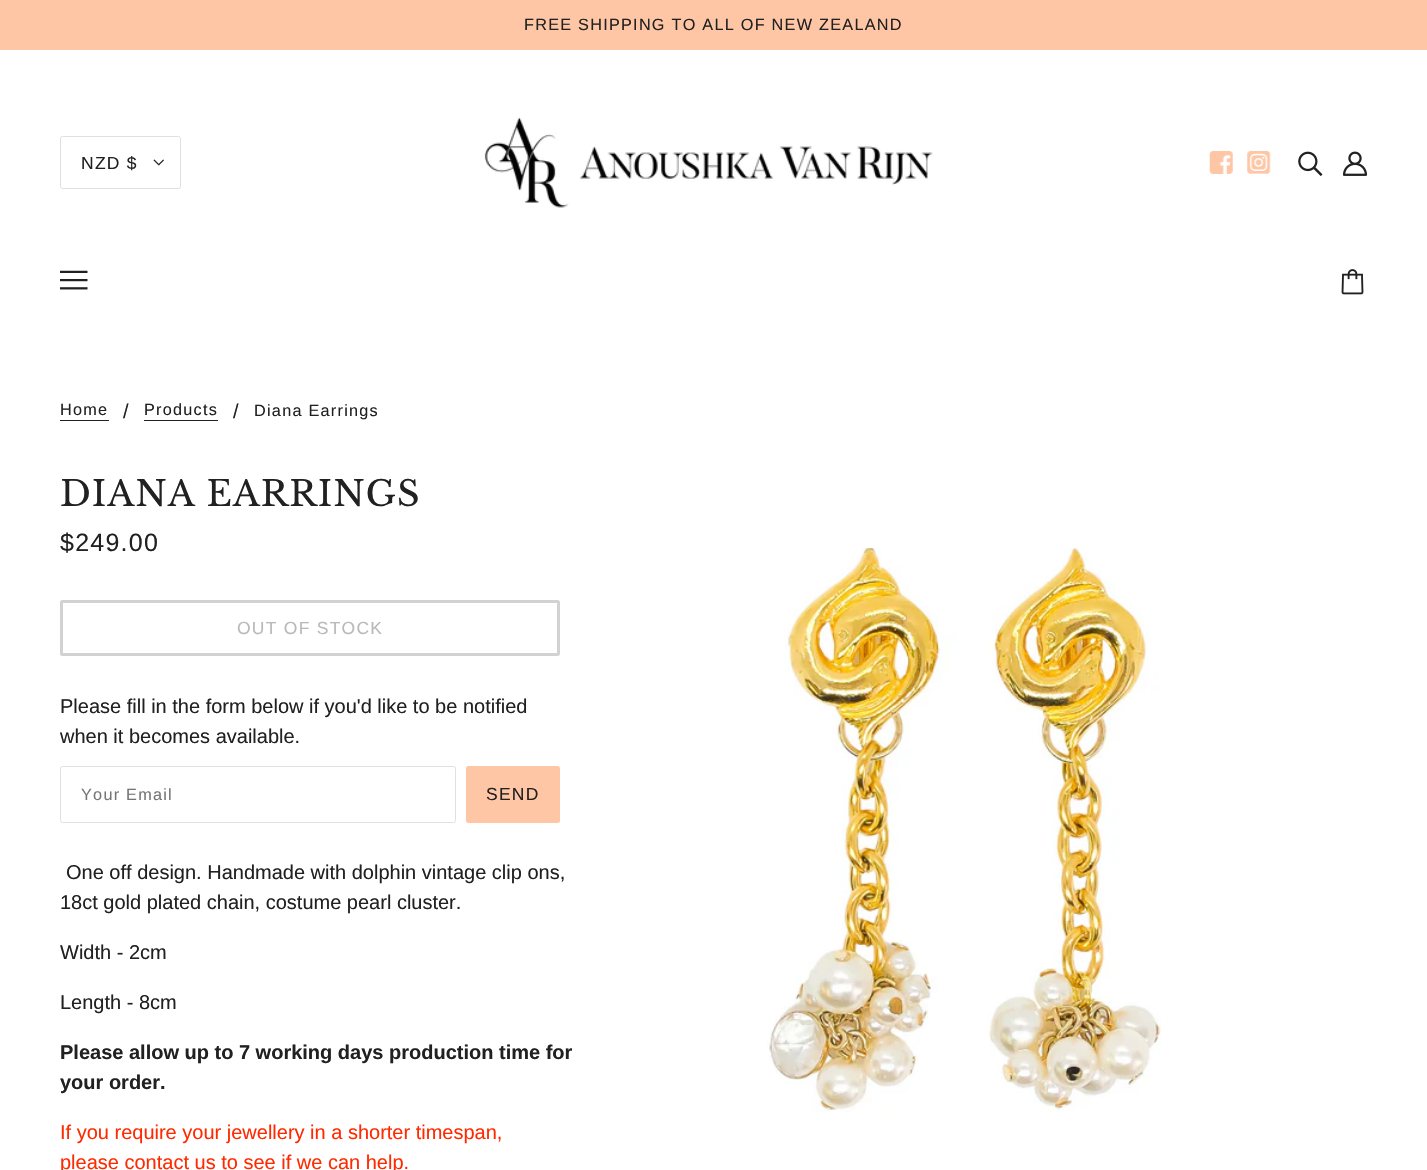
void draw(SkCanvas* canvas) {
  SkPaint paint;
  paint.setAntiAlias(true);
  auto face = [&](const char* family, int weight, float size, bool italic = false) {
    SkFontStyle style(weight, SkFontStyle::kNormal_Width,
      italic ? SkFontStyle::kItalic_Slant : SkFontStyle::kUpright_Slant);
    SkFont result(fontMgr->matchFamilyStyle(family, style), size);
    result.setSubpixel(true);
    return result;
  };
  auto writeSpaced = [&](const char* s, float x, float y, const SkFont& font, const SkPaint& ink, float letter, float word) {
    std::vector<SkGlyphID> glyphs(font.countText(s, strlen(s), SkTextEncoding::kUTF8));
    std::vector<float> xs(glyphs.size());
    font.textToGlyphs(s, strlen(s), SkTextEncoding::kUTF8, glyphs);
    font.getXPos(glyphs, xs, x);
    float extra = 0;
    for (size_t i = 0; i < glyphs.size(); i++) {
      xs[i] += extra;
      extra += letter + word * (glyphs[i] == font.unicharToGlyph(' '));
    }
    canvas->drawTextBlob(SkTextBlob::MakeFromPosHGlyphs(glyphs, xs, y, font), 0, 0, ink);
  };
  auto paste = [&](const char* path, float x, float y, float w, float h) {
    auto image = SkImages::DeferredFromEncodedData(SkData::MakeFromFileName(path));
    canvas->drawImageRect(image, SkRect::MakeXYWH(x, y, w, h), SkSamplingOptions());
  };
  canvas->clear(0xffffffff);
  paint.setColor(0xffffc6a6);
  canvas->drawRect(SkRect::MakeXYWH(0, 0, 1427, 50), paint);
  paint.setStroke(true);
  paint.setStrokeWidth(1);
  paint.setColor(0xffe0e0e0);
  canvas->drawRoundRect(SkRect::MakeXYWH(60.5f, 136.5f, 120, 52), 2, 2, paint);
  paste("img/1.png", 153, 159, 11, 7);
  paste("img/2.png", 484, 117, 449, 91);
  paste("img/3.png", 1209, 151, 24, 23);
  paste("img/4.png", 1247, 151, 24, 23);
  paste("img/5.png", 1298, 151, 25, 25);
  paste("img/6.png", 1343, 151, 25, 25);
  paste("img/7.png", 60, 270, 28, 20);
  paste("img/8.png", 1341, 269, 23, 26);
  paint.setStroke(false);
  paint.setColor(0xff212121);
  canvas->drawRect(SkRect::MakeXYWH(60, 420, 49, 1), paint);
  canvas->drawRect(SkRect::MakeXYWH(144, 420, 74, 1), paint);
  paint.setStroke(true);
  paint.setStrokeWidth(3);
  paint.setColor(0xffd2d2d2);
  canvas->drawRoundRect(SkRect::MakeXYWH(61.5f, 601.5f, 497, 53), 1, 1, paint);
  paint.setStrokeWidth(1);
  paint.setColor(0xffe0e0e0);
  canvas->drawRoundRect(SkRect::MakeXYWH(60.5f, 766.5f, 395, 56), 2, 2, paint);
  paint.setStroke(false);
  paint.setColor(0xffffc6a6);
  canvas->drawRoundRect(SkRect::MakeXYWH(466, 766, 94, 57), 2.5f, 2.5f, paint);
  paste("img/9.png", 767, 547, 394, 565);
  auto f0 = face("Liberation Sans", 400, 16.25f);
  paint.setColor(0xff212121);
  writeSpaced("FREE SHIPPING TO ALL OF NEW ZEALAND", 524, 30, f0, paint, 1.25f, 0);
  auto f1 = face("Liberation Sans", 400, 17.5f);
  writeSpaced("NZD $", 81, 169, f1, paint, 1.25f, 0);
  writeSpaced("Home", 60, 415, f0, paint, 1.25f, 0);
  auto f2 = face("Liberation Sans", 400, 20);
  canvas->drawString("/", 123, 418, f2, paint);
  writeSpaced("Products", 144, 415, f0, paint, 1.25f, 0);
  canvas->drawString("/", 233, 418, f2, paint);
  writeSpaced("Diana Earrings", 254, 416, f0, paint, 1.25f, 0);
  auto f3 = face("Libre Baskerville", 400, 35);
  writeSpaced("DIANA EARRINGS", 60, 506, f3, paint, 0.9f, 0);
  auto f4 = face("Liberation Sans", 400, 25);
  writeSpaced("$249.00", 60, 551, f4, paint, 1.25f, 0);
  paint.setColor(0xffb9b9b9);
  writeSpaced("OUT OF STOCK", 237, 634, f1, paint, 1.25f, 0);
  paint.setColor(0xff212121);
  canvas->drawString("Please fill in the form below if you'd like to be notified", 60, 713, f2, paint);
  canvas->drawString("when it becomes available.", 60, 743, f2, paint);
  paint.setColor(0xff757575);
  writeSpaced("Your Email", 81, 800, f0, paint, 1.25f, 0);
  paint.setColor(0xff212121);
  writeSpaced("SEND", 486, 800, f1, paint, 1.25f, 0);
  {
    const struct { const char* s; float x, y; } items[] = {
      {"One off design. Handmade with dolphin vintage clip ons,", 66, 879},
      {"18ct gold plated chain, costume pearl cluster.", 60, 909},
      {"Width - 2cm", 60, 959},
      {"Length - 8cm", 60, 1009},
    };
    for (auto [s, x, y] : items) {
      canvas->drawString(s, x, y, f2, paint);
    }
  }
  auto f5 = face("Liberation Sans", 700, 20);
  canvas->drawString("Please allow up to 7 working days production time for", 60, 1059, f5, paint);
  canvas->drawString("your order.", 60, 1089, f5, paint);
  paint.setColor(0xffff2a00);
  canvas->drawString("If you require your jewellery in a shorter timespan,", 60, 1139, f2, paint);
  canvas->drawString("please contact us to see if we can help.", 60, 1169, f2, paint);
}
